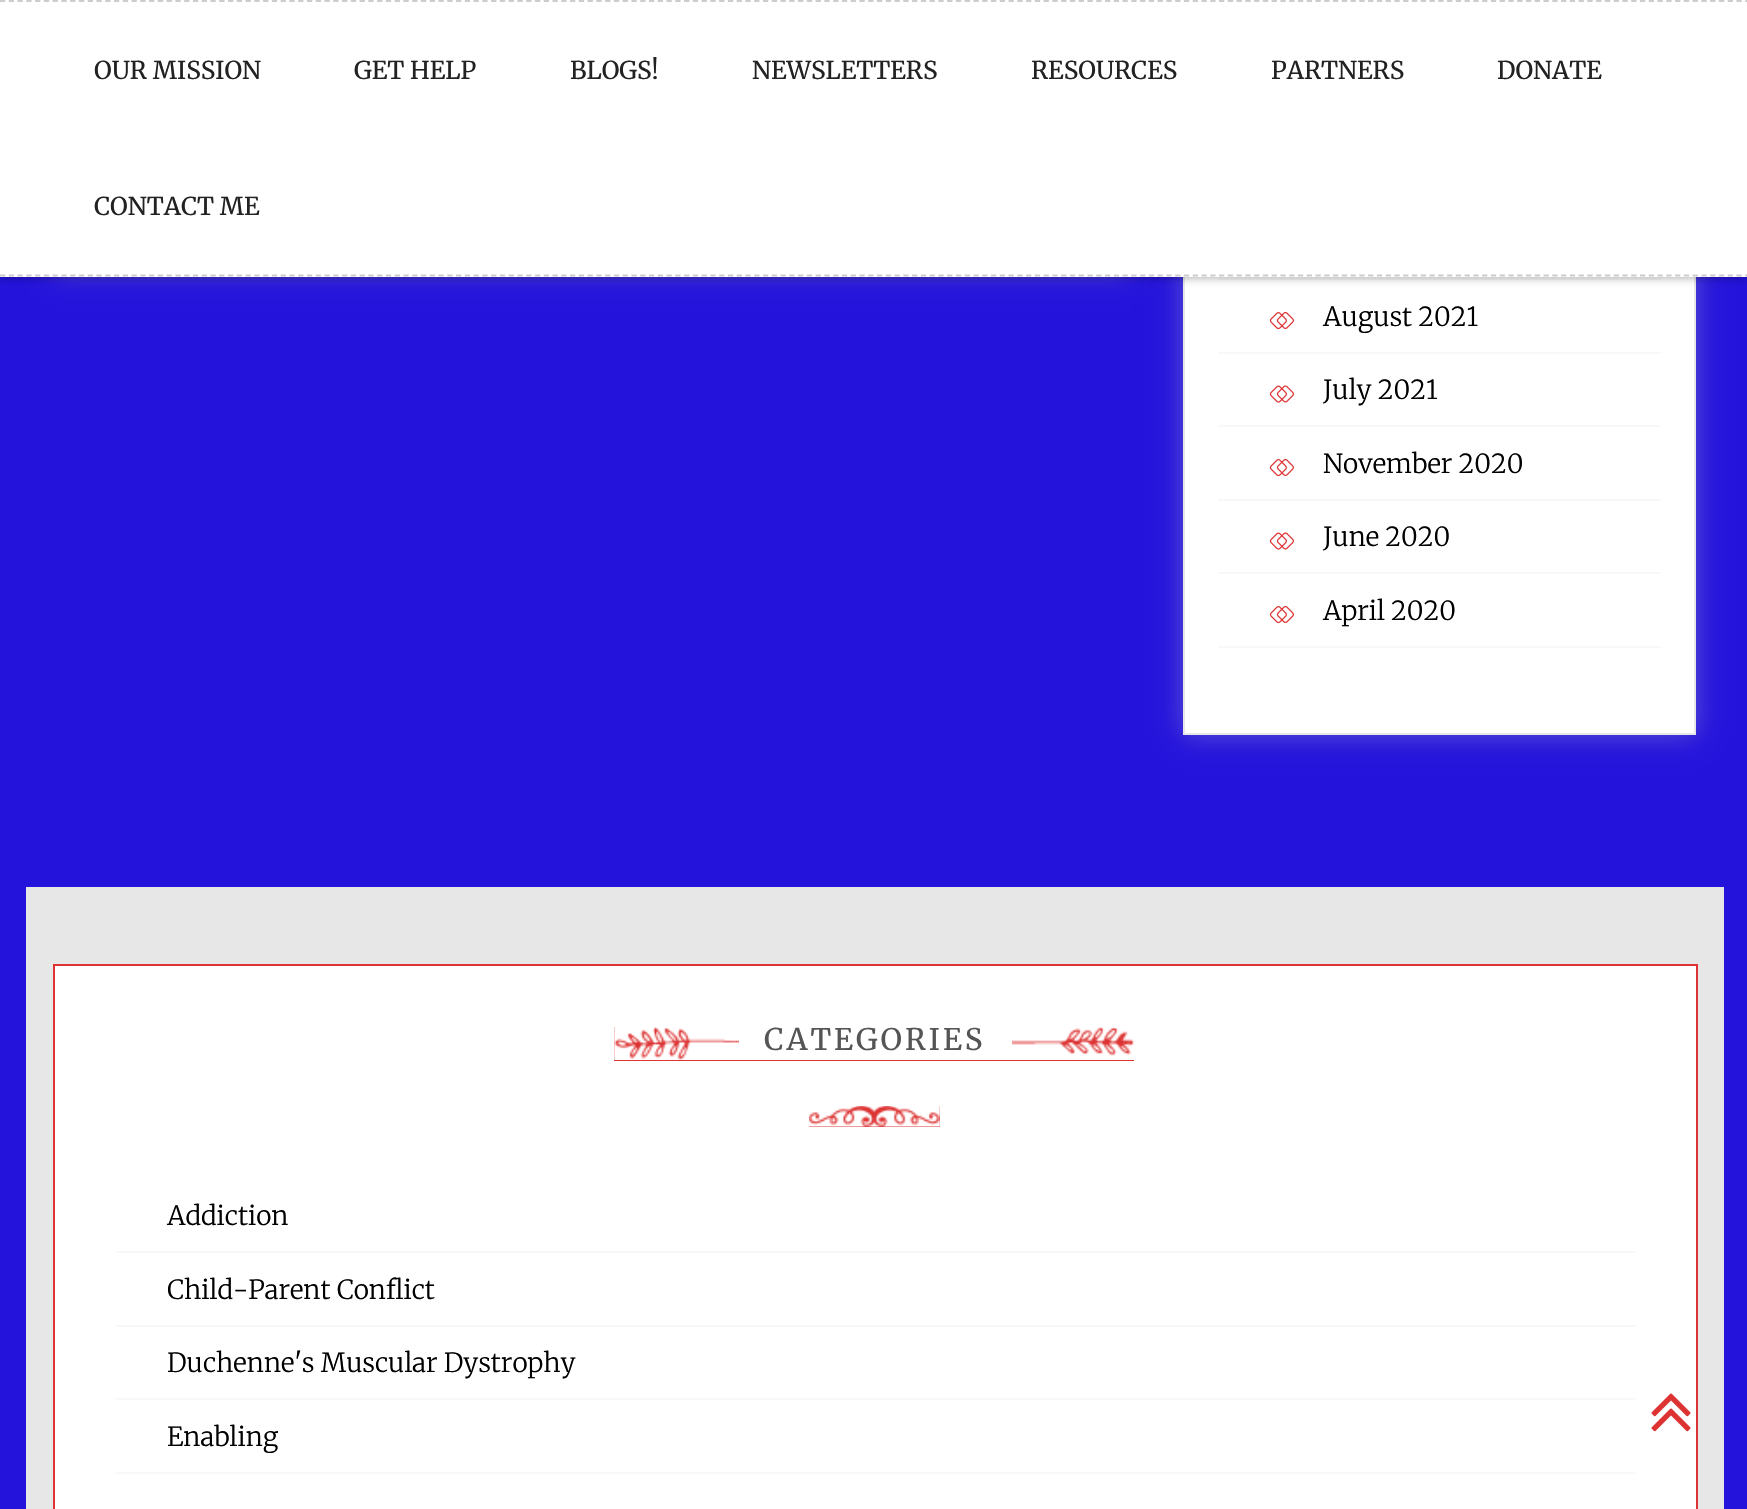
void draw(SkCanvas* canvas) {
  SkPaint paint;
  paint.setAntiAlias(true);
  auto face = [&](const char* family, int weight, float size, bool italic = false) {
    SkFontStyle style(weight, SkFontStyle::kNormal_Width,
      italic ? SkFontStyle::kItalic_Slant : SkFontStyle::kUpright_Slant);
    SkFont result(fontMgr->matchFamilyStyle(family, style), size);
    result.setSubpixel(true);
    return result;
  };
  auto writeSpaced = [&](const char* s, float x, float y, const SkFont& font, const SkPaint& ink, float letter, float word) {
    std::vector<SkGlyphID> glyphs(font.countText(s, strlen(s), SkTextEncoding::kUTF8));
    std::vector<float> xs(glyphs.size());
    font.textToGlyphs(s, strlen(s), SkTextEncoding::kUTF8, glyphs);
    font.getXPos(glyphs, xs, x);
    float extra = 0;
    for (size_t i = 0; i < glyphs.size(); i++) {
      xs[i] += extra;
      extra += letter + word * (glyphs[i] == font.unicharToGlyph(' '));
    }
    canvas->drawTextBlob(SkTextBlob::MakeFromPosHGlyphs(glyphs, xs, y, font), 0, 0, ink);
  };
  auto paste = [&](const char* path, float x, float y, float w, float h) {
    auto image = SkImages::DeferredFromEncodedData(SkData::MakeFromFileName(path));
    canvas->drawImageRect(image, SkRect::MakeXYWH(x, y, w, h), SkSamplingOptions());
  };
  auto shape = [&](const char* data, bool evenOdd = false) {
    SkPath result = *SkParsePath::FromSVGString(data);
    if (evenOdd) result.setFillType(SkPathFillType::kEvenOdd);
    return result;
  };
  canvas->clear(0xff2413db);
  paint.setColor(0x57cccccc);
  paint.setMaskFilter(SkMaskFilter::MakeBlur(kNormal_SkBlurStyle, 13));
  canvas->drawRect(SkRect::MakeXYWH(1183, -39, 513, 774), paint);
  paint.setMaskFilter(nullptr);
  paint.setColor(0xffffffff);
  canvas->drawRect(SkRect::MakeXYWH(1185, 277, 509, 456), paint);
  paint.setStroke(true);
  paint.setStrokeWidth(2);
  paint.setColor(0xffe7e7e7);
  canvas->drawRect(SkRect::MakeXYWH(1184, -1, 511, 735), paint);
  paint.setStroke(false);
  paint.setColor(0xfff8f8f8);
  canvas->drawRect(SkRect::MakeXYWH(1218, 278, 443, 2), paint);
  paint.setColor(0x61000000);
  paint.setMaskFilter(SkMaskFilter::MakeBlur(kNormal_SkBlurStyle, 4.5f));
  canvas->drawRect(SkRect::MakeXYWH(0, 0, 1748, 277), paint);
  paint.setMaskFilter(nullptr);
  paint.setColor(0x57cccccc);
  paint.setMaskFilter(SkMaskFilter::MakeBlur(kNormal_SkBlurStyle, 13));
  canvas->drawRect(SkRect::MakeXYWH(53, -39, 1078, 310), paint);
  paint.setMaskFilter(nullptr);
  paint.setColor(0xffffffff);
  canvas->drawRect(SkRect::MakeXYWH(0, 0, 1747, 277), paint);
  paint.setStroke(true);
  paint.setStrokeWidth(1.8f);
  paint.setColor(0xffcccccc);
  paint.setPathEffect(SkDashPathEffect::Make({{5.25f, 3.52f}}, 0));
  canvas->drawPath(shape("M0 1H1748"), paint);
  paint.setPathEffect(nullptr);
  paint.setPathEffect(SkDashPathEffect::Make({{5.25f, 3.52f}}, 0));
  canvas->drawPath(shape("M0 275.5H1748"), paint);
  paint.setPathEffect(nullptr);
  paint.setStroke(false);
  paint.setColor(0xfff8f8f8);
  canvas->drawRect(SkRect::MakeXYWH(1218, 352, 443, 2), paint);
  paste("img/2.png", 1269, 312, 18, 18);
  paste("img/1.png", 1276, 311, 18, 18);
  canvas->drawRect(SkRect::MakeXYWH(1218, 425, 443, 2), paint);
  paste("img/3.png", 1269, 385, 18, 18);
  paste("img/4.png", 1276, 385, 18, 18);
  canvas->drawRect(SkRect::MakeXYWH(1218, 499, 443, 2), paint);
  paste("img/2.png", 1269, 459, 18, 18);
  paste("img/1.png", 1276, 458, 18, 18);
  canvas->drawRect(SkRect::MakeXYWH(1218, 572, 443, 2), paint);
  paste("img/3.png", 1269, 532, 18, 18);
  paste("img/4.png", 1276, 532, 18, 18);
  canvas->drawRect(SkRect::MakeXYWH(1218, 646, 443, 2), paint);
  paste("img/2.png", 1269, 606, 18, 18);
  paste("img/1.png", 1276, 605, 18, 18);
  paint.setColor(0xffe7e7e7);
  canvas->drawRect(SkRect::MakeXYWH(26, 887, 1698, 622), paint);
  paint.setColor(0xffffffff);
  canvas->drawRect(SkRect::MakeXYWH(54, 965, 1643, 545), paint);
  paint.setStroke(true);
  paint.setStrokeWidth(2);
  paint.setColor(0xffdd3333);
  canvas->drawRect(SkRect::MakeXYWH(54, 965, 1643, 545), paint);
  paint.setStroke(false);
  canvas->drawRect(SkRect::MakeXYWH(614, 1027, 520, 34), paint);
  paste("img/5.png", 614, 1027, 520, 33);
  paint.setColor(0xffffffff);
  canvas->drawRect(SkRect::MakeXYWH(739, 1040, 273, 7), paint);
  paint.setColor(0xffdd3333);
  canvas->drawRect(SkRect::MakeXYWH(809, 1106, 131, 21), paint);
  paste("img/6.png", 809, 1106, 131, 21);
  {
    const struct { float x, y, w, h; SkColor color; } items[] = {
      {116, 1251, 1519, 2, 0xfff8f8f8},
      {116, 1325, 1519, 2, 0xfff8f8f8},
      {116, 1398, 1519, 2, 0xfff8f8f8},
      {116, 1472, 1519, 2, 0xfff8f8f8},
    };
    for (auto [x, y, w, h, color] : items) {
      paint.setColor(color);
      canvas->drawRect(SkRect::MakeXYWH(x, y, w, h), paint);
    }
  }
  paste("img/7.png", 1651, 1393, 40, 39);
  auto f0 = face("Merriweather", 400, 24.5f);
  paint.setColor(0xff222222);
  {
    const struct { const char* s; float x, y; } items[] = {
      {"OUR MISSION", 94, 79},
      {"GET HELP", 354, 79},
      {"BLOGS!", 570, 79},
      {"NEWSLETTERS", 752, 79},
      {"RESOURCES", 1031, 79},
      {"PARTNERS", 1271, 79},
      {"DONATE", 1497, 79},
      {"CONTACT ME", 94, 215},
    };
    for (auto [s, x, y] : items) {
      canvas->drawString(s, x, y, f0, paint);
    }
  }
  auto f1 = face("Merriweather", 300, 26.25f);
  paint.setColor(0xff000000);
  {
    const struct { const char* s; float x, y; } items[] = {
      {"August 2021", 1323, 326},
      {"July 2021", 1323, 399},
      {"November 2020", 1323, 473},
      {"June 2020", 1323, 546},
      {"April 2020", 1323, 620},
    };
    for (auto [s, x, y] : items) {
      canvas->drawString(s, x, y, f1, paint);
    }
  }
  auto f2 = face("Merriweather", 400, 29.75f);
  paint.setColor(0xff555555);
  writeSpaced("CATEGORIES", 764, 1050, f2, paint, 3, 0);
  paint.setColor(0xff000000);
  {
    const struct { const char* s; float x, y; } items[] = {
      {"Addiction", 167, 1225},
      {"Child-Parent Conflict", 167, 1299},
      {"Duchenne's Muscular Dystrophy", 167, 1372},
      {"Enabling", 167, 1446},
    };
    for (auto [s, x, y] : items) {
      canvas->drawString(s, x, y, f1, paint);
    }
  }
}
